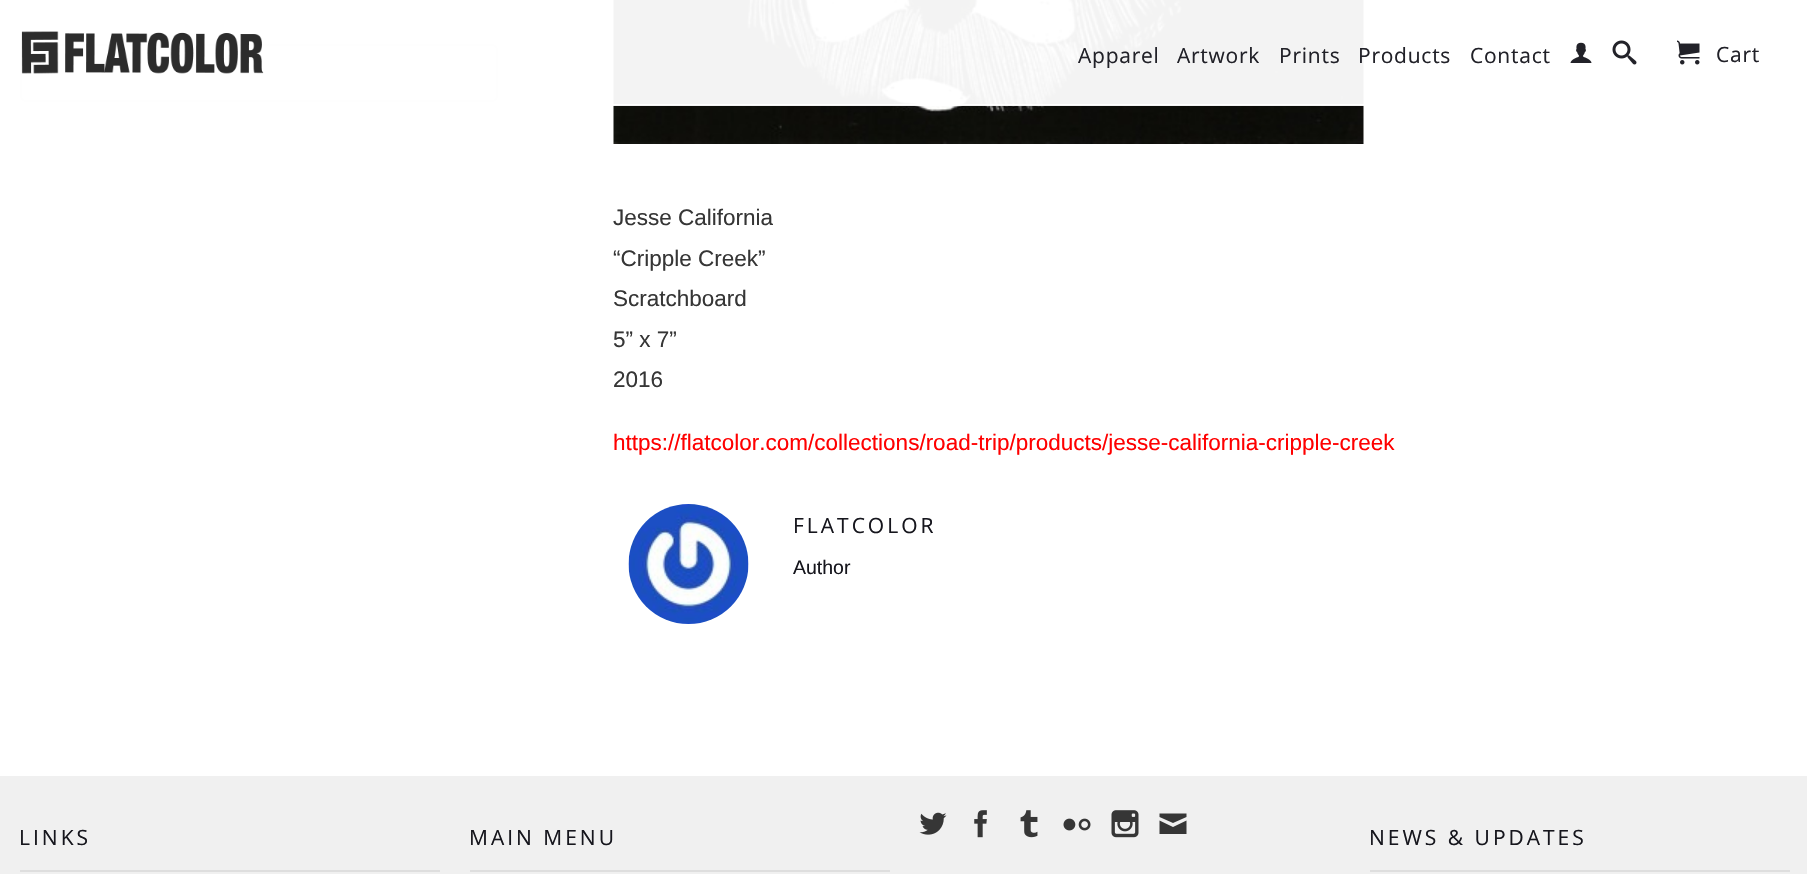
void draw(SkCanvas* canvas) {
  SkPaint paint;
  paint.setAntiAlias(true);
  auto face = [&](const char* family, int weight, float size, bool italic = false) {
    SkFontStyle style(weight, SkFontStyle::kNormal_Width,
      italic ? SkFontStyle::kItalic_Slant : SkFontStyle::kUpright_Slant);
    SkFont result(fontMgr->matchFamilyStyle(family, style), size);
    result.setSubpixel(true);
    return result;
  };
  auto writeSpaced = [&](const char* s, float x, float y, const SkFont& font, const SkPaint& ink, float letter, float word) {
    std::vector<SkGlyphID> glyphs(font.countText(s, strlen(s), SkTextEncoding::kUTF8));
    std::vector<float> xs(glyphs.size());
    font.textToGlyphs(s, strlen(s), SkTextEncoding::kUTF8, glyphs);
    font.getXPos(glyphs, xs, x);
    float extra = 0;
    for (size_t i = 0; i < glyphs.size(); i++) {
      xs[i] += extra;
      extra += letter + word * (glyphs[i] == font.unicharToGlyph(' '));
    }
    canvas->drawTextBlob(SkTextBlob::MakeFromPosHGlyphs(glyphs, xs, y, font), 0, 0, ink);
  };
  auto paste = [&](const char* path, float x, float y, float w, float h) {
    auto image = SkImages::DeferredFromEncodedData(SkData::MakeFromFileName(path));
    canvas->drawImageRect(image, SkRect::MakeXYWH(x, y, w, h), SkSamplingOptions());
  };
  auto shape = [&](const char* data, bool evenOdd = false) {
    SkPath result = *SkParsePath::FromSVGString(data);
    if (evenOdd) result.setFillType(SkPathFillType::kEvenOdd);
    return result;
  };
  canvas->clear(0xffffffff);
  paint.setStroke(true);
  paint.setStrokeWidth(2);
  paint.setColor(0xffdce0e0);
  canvas->drawRoundRect(SkRect::MakeXYWH(21, 45, 476, 56), 5, 5, paint);
  paste("img/5.png", 613, 0, 751, 144);
  paint.setStroke(false);
  paint.setColor(0xf2ffffff);
  canvas->drawRect(SkRect::MakeXYWH(20, 0, 1344, 105), paint);
  canvas->drawRect(SkRect::MakeXYWH(613, 104, 751, 2), paint);
  paste("img/1.png", 21, 31, 243, 43);
  paste("img/2.png", 1570, 42, 22, 21);
  paste("img/3.png", 1612, 40, 25, 25);
  paste("img/4.png", 1677, 40, 23, 25);
  paste("img/6.png", 628, 504, 121, 120);
  {
    const struct { float x, y, w, h; SkColor color; } items[] = {
      {0, 776, 1807, 98, 0xfff0f0f0},
      {20, 870, 420, 2, 0xffdedede},
      {470, 870, 420, 2, 0xffdedede},
    };
    for (auto [x, y, w, h, color] : items) {
      paint.setColor(color);
      canvas->drawRect(SkRect::MakeXYWH(x, y, w, h), paint);
    }
  }
  paste("img/7.png", 919, 812, 28, 23);
  paste("img/8.png", 974, 810, 13, 28);
  paste("img/9.png", 1020, 810, 18, 28);
  paste("img/10.png", 1063, 818, 28, 13);
  paste("img/11.png", 1111, 810, 28, 28);
  paint.setColor(0xff363636);
  canvas->drawPath(shape("M1173 823L1159.5 817V813.5H1186.5V817ZM1173 827L1186.5 820.5V834H1159.5V820.5Z"), paint);
  paint.setColor(0xffdedede);
  canvas->drawRect(SkRect::MakeXYWH(1370, 870, 420, 2), paint);
  auto f0 = face("Open Sans", 400, 21);
  paint.setColor(0xff212128);
  {
    const struct { const char* s; float x, y; } items[] = {
      {"Apparel", 1078, 63},
      {"Artwork", 1177, 63},
      {"Prints", 1279, 63},
      {"Products", 1358, 63},
      {"Contact", 1470, 63},
      {"Cart", 1716, 62},
    };
    for (auto [s, x, y] : items) {
      writeSpaced(s, x, y, f0, paint, 0.75f, 0);
    }
  }
  auto f1 = face("Liberation Sans", 400, 22.5f);
  paint.setColor(0xff363636);
  {
    const struct { const char* s; float x, y; } items[] = {
      {"Jesse California", 613, 225},
      {"“Cripple Creek”", 613, 266},
      {"Scratchboard", 613, 306},
      {"5” x 7”", 613, 347},
      {"2016", 613, 387},
    };
    for (auto [s, x, y] : items) {
      canvas->drawString(s, x, y, f1, paint);
    }
  }
  paint.setColor(0xffff0000);
  canvas->drawString("https://flatcolor.com/collections/road-trip/products/jesse-california-cripple-creek", 613, 450, f1, paint);
  paint.setColor(0xff16161d);
  writeSpaced("FLATCOLOR", 793, 533, f0, paint, 3, 0);
  auto f2 = face("Liberation Sans", 400, 19.5f);
  canvas->drawString("Author", 793, 574, f2, paint);
  {
    const struct { const char* s; float x, y; } items[] = {
      {"LINKS", 19, 845},
      {"MAIN MENU", 469, 845},
      {"NEWS & UPDATES", 1369, 845},
    };
    for (auto [s, x, y] : items) {
      writeSpaced(s, x, y, f0, paint, 3, 0);
    }
  }
}
